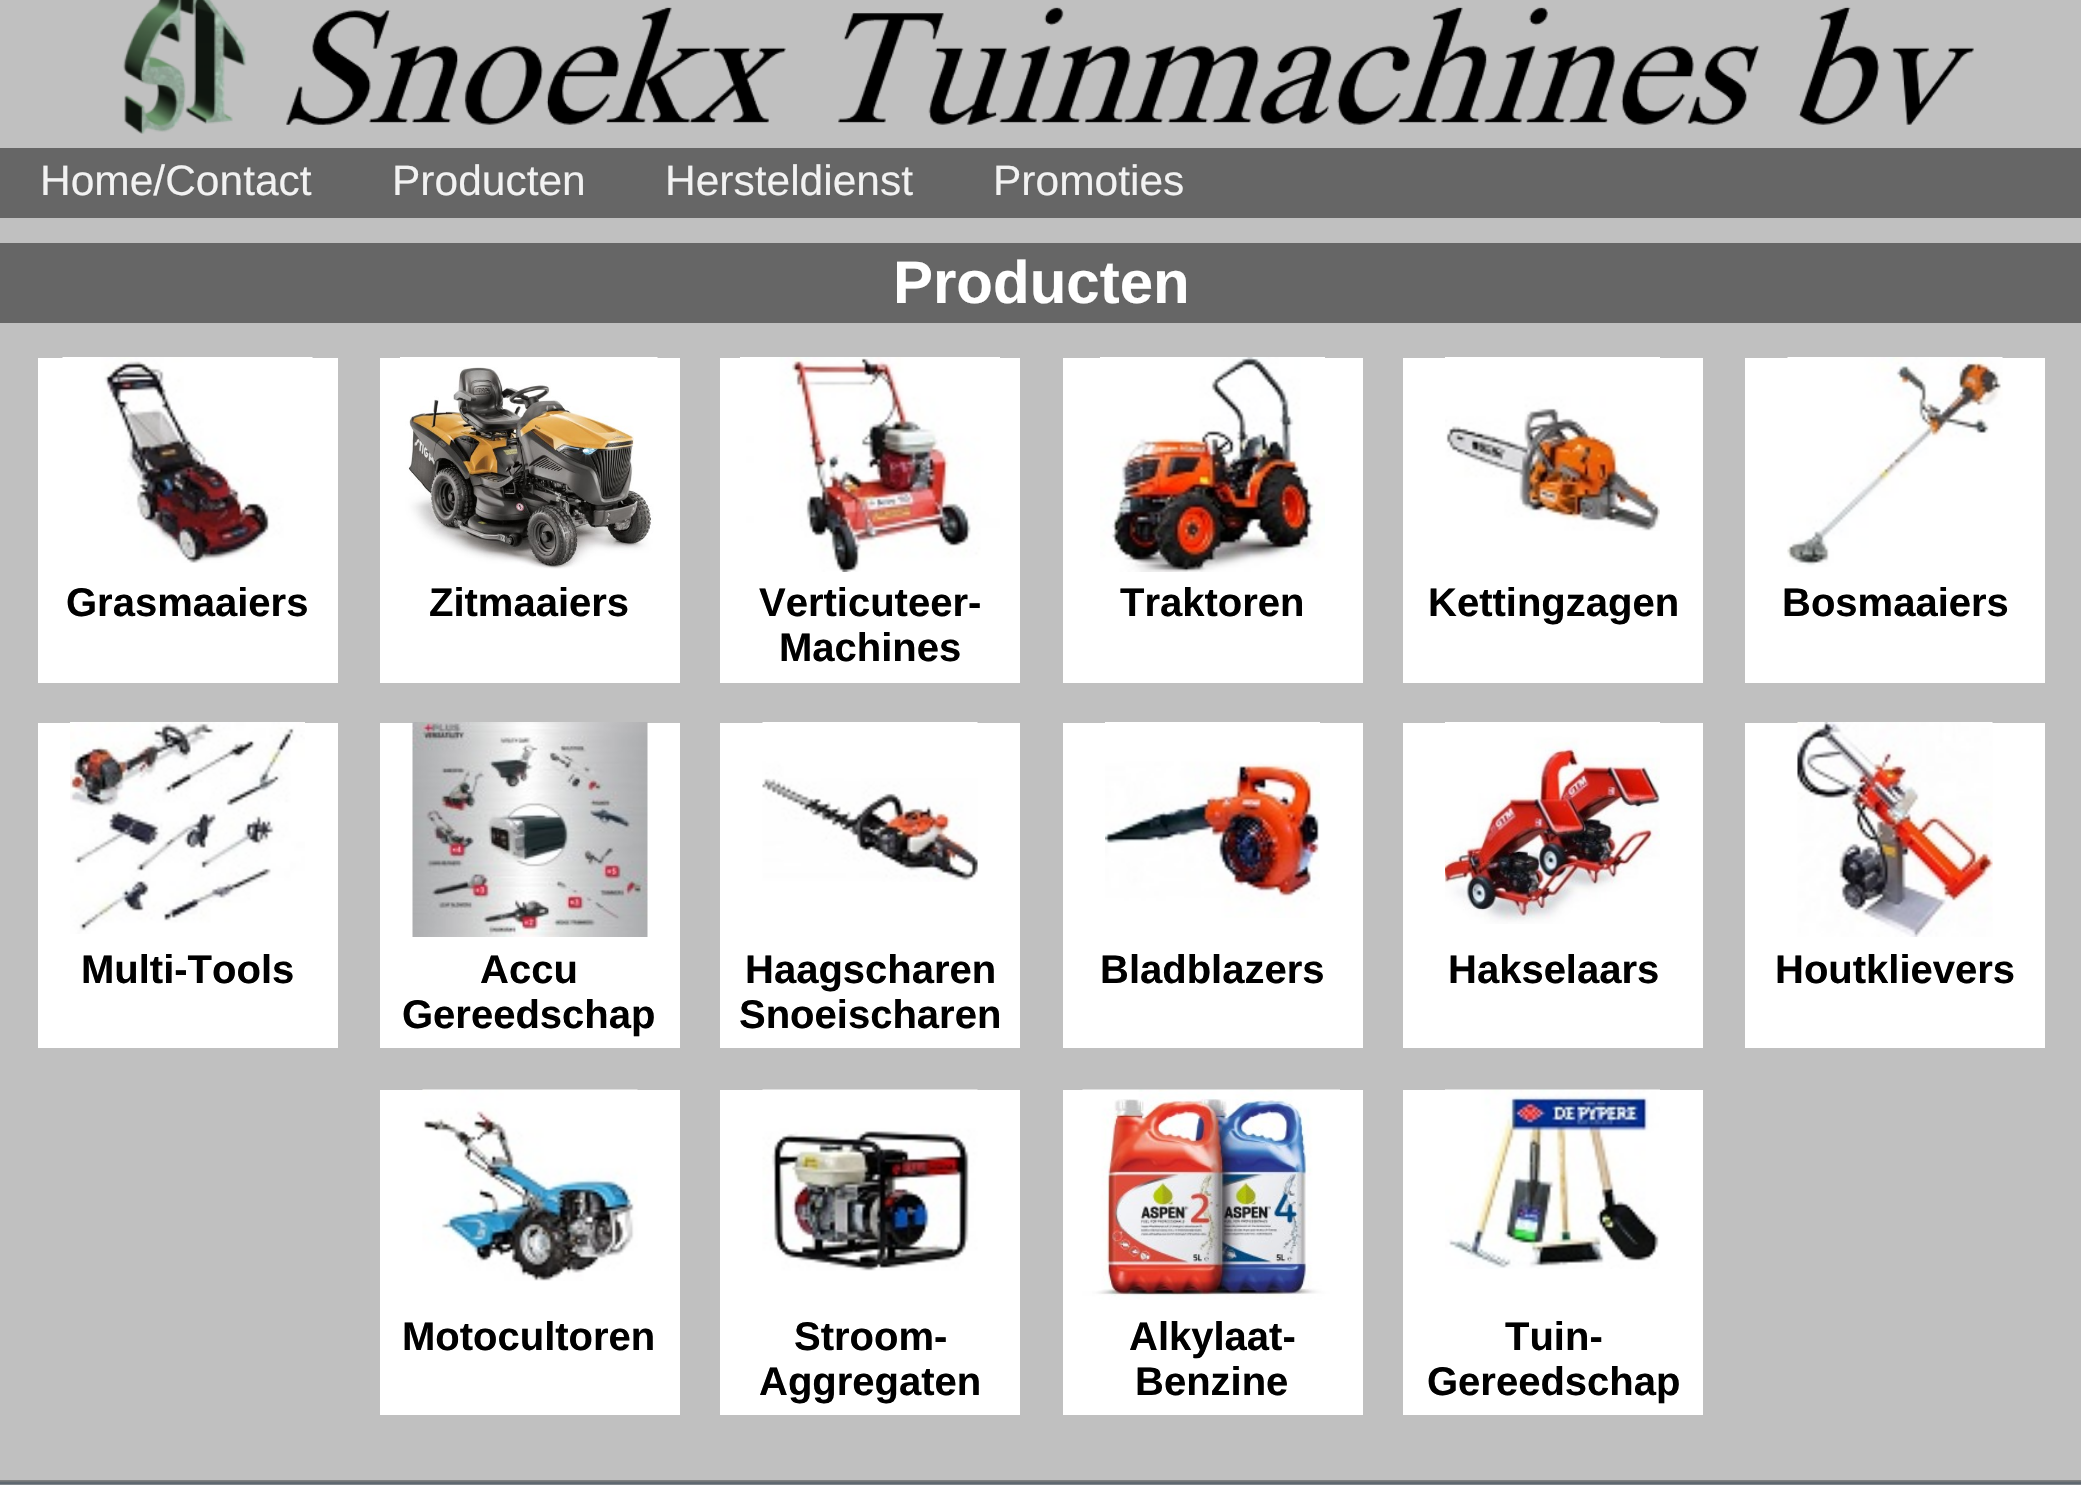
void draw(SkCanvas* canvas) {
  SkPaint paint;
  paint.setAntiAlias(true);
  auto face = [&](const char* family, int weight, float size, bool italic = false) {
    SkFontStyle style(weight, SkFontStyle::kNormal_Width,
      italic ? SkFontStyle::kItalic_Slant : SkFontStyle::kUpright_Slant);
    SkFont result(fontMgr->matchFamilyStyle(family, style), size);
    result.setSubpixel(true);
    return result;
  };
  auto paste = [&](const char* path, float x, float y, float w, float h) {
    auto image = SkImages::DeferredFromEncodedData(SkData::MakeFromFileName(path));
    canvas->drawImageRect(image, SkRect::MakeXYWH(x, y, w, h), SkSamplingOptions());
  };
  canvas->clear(0xffc0c0c0);
  paste("img/1.png", 123, 0, 1851, 134);
  {
    const struct { float x, y, w, h; SkColor color; } items[] = {
      {0, 148, 2081, 70, 0xff666666},
      {0, 243, 2081, 80, 0xff666666},
      {38, 358, 300, 325, 0xffffffff},
    };
    for (auto [x, y, w, h, color] : items) {
      paint.setColor(color);
      canvas->drawRect(SkRect::MakeXYWH(x, y, w, h), paint);
    }
  }
  paste("img/2.png", 62, 357, 251, 206);
  canvas->drawRect(SkRect::MakeXYWH(380, 358, 300, 325), paint);
  paste("img/3.png", 400, 357, 258, 212);
  canvas->drawRect(SkRect::MakeXYWH(720, 358, 300, 325), paint);
  paste("img/4.png", 740, 357, 260, 215);
  canvas->drawRect(SkRect::MakeXYWH(1063, 358, 300, 325), paint);
  paste("img/5.png", 1100, 357, 225, 215);
  canvas->drawRect(SkRect::MakeXYWH(1403, 358, 300, 325), paint);
  paste("img/6.png", 1445, 357, 215, 174);
  canvas->drawRect(SkRect::MakeXYWH(1745, 358, 300, 325), paint);
  paste("img/7.png", 1787, 357, 216, 210);
  canvas->drawRect(SkRect::MakeXYWH(38, 723, 300, 325), paint);
  paste("img/8.png", 70, 722, 235, 212);
  canvas->drawRect(SkRect::MakeXYWH(380, 723, 300, 325), paint);
  paste("img/9.png", 412, 722, 236, 215);
  canvas->drawRect(SkRect::MakeXYWH(720, 723, 300, 325), paint);
  paste("img/10.png", 762, 722, 216, 160);
  canvas->drawRect(SkRect::MakeXYWH(1063, 723, 300, 325), paint);
  paste("img/11.png", 1105, 722, 215, 196);
  canvas->drawRect(SkRect::MakeXYWH(1403, 723, 300, 325), paint);
  paste("img/12.png", 1445, 722, 215, 202);
  canvas->drawRect(SkRect::MakeXYWH(1745, 723, 300, 325), paint);
  paste("img/13.png", 1797, 722, 196, 215);
  canvas->drawRect(SkRect::MakeXYWH(380, 1090, 300, 325), paint);
  paste("img/14.png", 422, 1089, 216, 192);
  canvas->drawRect(SkRect::MakeXYWH(720, 1090, 300, 325), paint);
  paste("img/15.png", 762, 1089, 216, 182);
  canvas->drawRect(SkRect::MakeXYWH(1063, 1090, 300, 325), paint);
  paste("img/16.png", 1082, 1089, 258, 211);
  canvas->drawRect(SkRect::MakeXYWH(1403, 1090, 300, 325), paint);
  paste("img/17.png", 1445, 1089, 215, 180);
  paint.setColor(0xff808080);
  canvas->drawRect(SkRect::MakeXYWH(0, 1480, 2081, 3), paint);
  paste("img/18.png", 0, 1481, 2081, 4);
  auto f0 = face("Liberation Sans", 400, 42.5f);
  paint.setColor(0xfff2f2f2);
  {
    const struct { const char* s; float x, y; } items[] = {
      {"Home/Contact", 40, 195},
      {"Producten", 392, 195},
      {"Hersteldienst", 665, 195},
      {"Promoties", 993, 195},
    };
    for (auto [s, x, y] : items) {
      canvas->drawString(s, x, y, f0, paint);
    }
  }
  auto f1 = face("Liberation Sans", 700, 60);
  paint.setColor(0xffffffff);
  canvas->drawString("Producten", 893, 303, f1, paint);
  auto f2 = face("Liberation Sans", 700, 40);
  paint.setColor(0xff000000);
  {
    const struct { const char* s; float x, y; } items[] = {
      {"Grasmaaiers", 66, 616},
      {"Zitmaaiers", 429, 616},
      {"Verticuteer-", 759, 616},
      {"Machines", 779, 661},
      {"Traktoren", 1120, 616},
      {"Kettingzagen", 1428, 616},
      {"Bosmaaiers", 1782, 616},
      {"Multi-Tools", 81, 983},
      {"Accu", 480, 983},
      {"Gereedschap", 402, 1028},
      {"Haagscharen", 745, 983},
      {"Snoeischaren", 739, 1028},
      {"Bladblazers", 1100, 983},
      {"Hakselaars", 1448, 983},
      {"Houtklievers", 1775, 983},
      {"Motocultoren", 402, 1350},
      {"Stroom-", 794, 1350},
      {"Aggregaten", 759, 1395},
      {"Alkylaat-", 1129, 1350},
      {"Benzine", 1135, 1395},
      {"Tuin-", 1505, 1350},
      {"Gereedschap", 1427, 1395},
    };
    for (auto [s, x, y] : items) {
      canvas->drawString(s, x, y, f2, paint);
    }
  }
}
